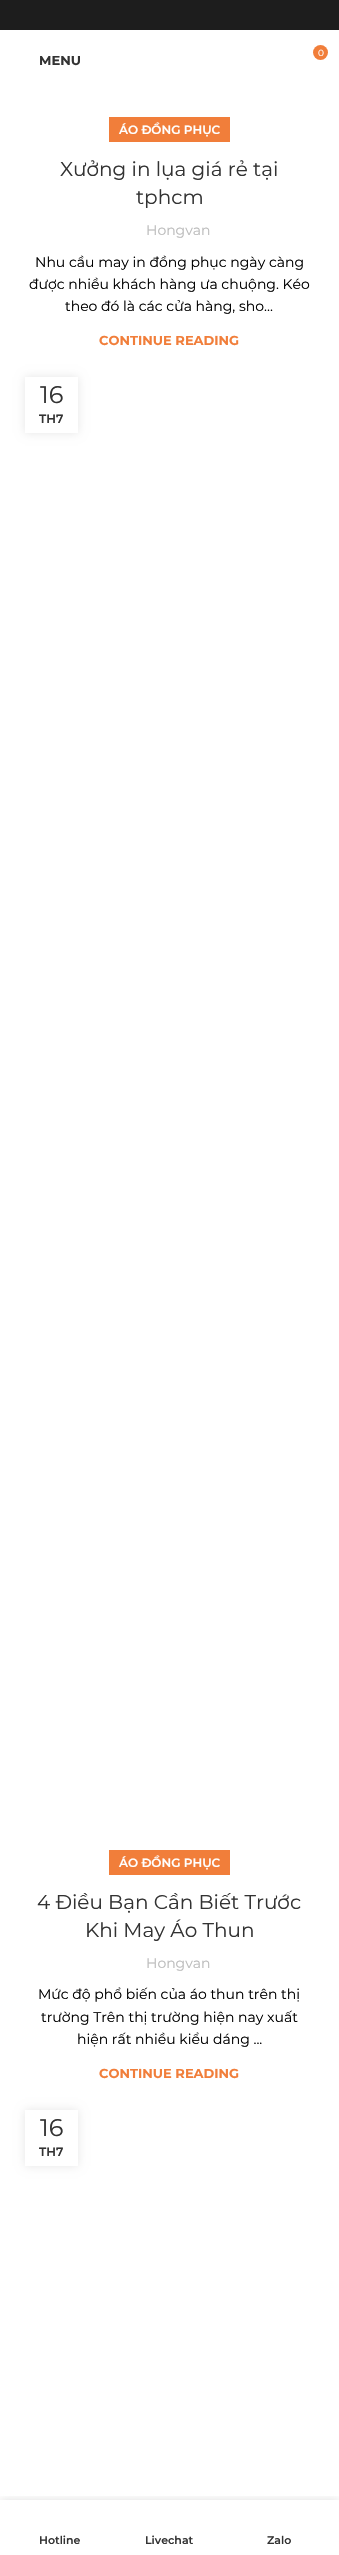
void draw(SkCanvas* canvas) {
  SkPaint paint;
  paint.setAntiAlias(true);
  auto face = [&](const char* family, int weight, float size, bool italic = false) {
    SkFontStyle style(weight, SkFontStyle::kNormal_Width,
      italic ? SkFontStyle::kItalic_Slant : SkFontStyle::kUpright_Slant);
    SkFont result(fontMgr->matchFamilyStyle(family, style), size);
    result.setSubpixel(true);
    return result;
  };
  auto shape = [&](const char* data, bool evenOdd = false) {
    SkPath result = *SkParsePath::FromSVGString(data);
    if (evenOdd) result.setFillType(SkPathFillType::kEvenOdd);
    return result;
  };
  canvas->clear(0xffffffff);
  paint.setColor(0xff1d1d1d);
  canvas->drawRect(SkRect::MakeXYWH(0, 0, 339, 30), paint);
  paint.setColor(0xfff17e3a);
  canvas->drawCircle(320.5f, 52.5f, 7.5f, paint);
  canvas->drawRect(SkRect::MakeXYWH(109, 117, 121, 25), paint);
  canvas->save();
  canvas->clipPath(shape("M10 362H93V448H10ZM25 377H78V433H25Z", true), true);
  paint.setColor(0x1a000000);
  paint.setMaskFilter(SkMaskFilter::MakeBlur(kNormal_SkBlurStyle, 4.5f));
  canvas->drawRect(SkRect::MakeXYWH(25, 377, 53, 56), paint);
  paint.setMaskFilter(nullptr);
  canvas->restore();
  paint.setColor(0xfff17e3a);
  canvas->drawRect(SkRect::MakeXYWH(109, 1850, 121, 25), paint);
  canvas->save();
  canvas->clipPath(shape("M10 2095H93V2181H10ZM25 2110H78V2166H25Z", true), true);
  paint.setColor(0x1a000000);
  paint.setMaskFilter(SkMaskFilter::MakeBlur(kNormal_SkBlurStyle, 4.5f));
  canvas->drawRect(SkRect::MakeXYWH(25, 2110, 53, 56), paint);
  paint.setMaskFilter(nullptr);
  canvas->restore();
  canvas->save();
  canvas->clipRect(SkRect::MakeXYWH(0, 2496, 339, 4));
  paint.setColor(0x1f000000);
  paint.setMaskFilter(SkMaskFilter::MakeBlur(kNormal_SkBlurStyle, 4.5f));
  canvas->drawRect(SkRect::MakeXYWH(0, 2500, 339, 55), paint);
  paint.setMaskFilter(nullptr);
  canvas->restore();
  auto f0 = face("Montserrat", 400, 9);
  paint.setColor(0xffffffff);
  canvas->drawString("0", 318, 56, f0, paint);
  auto f1 = face("Montserrat", 700, 13);
  paint.setColor(0xff333333);
  canvas->drawString("MENU", 39, 65, f1, paint);
  auto f2 = face("Montserrat", 600, 12);
  paint.setColor(0xffffffff);
  canvas->drawString("ÁO ĐỒNG PHỤC", 119, 134, f2, paint);
  auto f3 = face("Montserrat", 400, 20);
  paint.setColor(0xff333333);
  canvas->drawString("Xưởng in lụa giá rẻ tại", 60, 176, f3, paint);
  canvas->drawString("tphcm", 136, 204, f3, paint);
  auto f4 = face("Montserrat", 400, 14);
  paint.setColor(0xffbbbbbb);
  canvas->drawString("Hongvan", 146, 235, f4, paint);
  paint.setColor(0xff000000);
  {
    const struct { const char* s; float x, y; } items[] = {
      {"Nhu cầu may in đồng phục ngày càng", 35, 267},
      {"được nhiều khách hàng ưa chuộng. Kéo", 29, 289},
      {"theo đó là các cửa hàng, sho...", 65, 311},
    };
    for (auto [s, x, y] : items) {
      canvas->drawString(s, x, y, f4, paint);
    }
  }
  paint.setColor(0xfff17e3a);
  canvas->drawString("CONTINUE READING", 99, 345, f1, paint);
  auto f5 = face("Montserrat", 400, 24);
  paint.setColor(0xff333333);
  canvas->drawString("16", 40, 403, f5, paint);
  canvas->drawString("TH7", 39, 423, f2, paint);
  paint.setColor(0xffffffff);
  canvas->drawString("ÁO ĐỒNG PHỤC", 119, 1867, f2, paint);
  paint.setColor(0xff333333);
  canvas->drawString("4 Điều Bạn Cần Biết Trước", 37, 1909, f3, paint);
  canvas->drawString("Khi May Áo Thun", 85, 1937, f3, paint);
  paint.setColor(0xffbbbbbb);
  canvas->drawString("Hongvan", 146, 1968, f4, paint);
  paint.setColor(0xff000000);
  {
    const struct { const char* s; float x, y; } items[] = {
      {"Mức độ phổ biến của áo thun trên thị", 38, 1999},
      {"trường Trên thị trường hiện nay xuất", 41, 2022},
      {"hiện rất nhiều kiểu dáng ...", 77, 2044},
    };
    for (auto [s, x, y] : items) {
      canvas->drawString(s, x, y, f4, paint);
    }
  }
  paint.setColor(0xfff17e3a);
  canvas->drawString("CONTINUE READING", 99, 2078, f1, paint);
  paint.setColor(0xff333333);
  canvas->drawString("16", 40, 2136, f5, paint);
  canvas->drawString("TH7", 39, 2156, f2, paint);
  auto f6 = face("Montserrat", 600, 11);
  {
    const struct { const char* s; float x, y; } items[] = {
      {"Hotline", 39, 2544},
      {"Livechat", 145, 2544},
      {"Zalo", 267, 2544},
    };
    for (auto [s, x, y] : items) {
      canvas->drawString(s, x, y, f6, paint);
    }
  }
}
